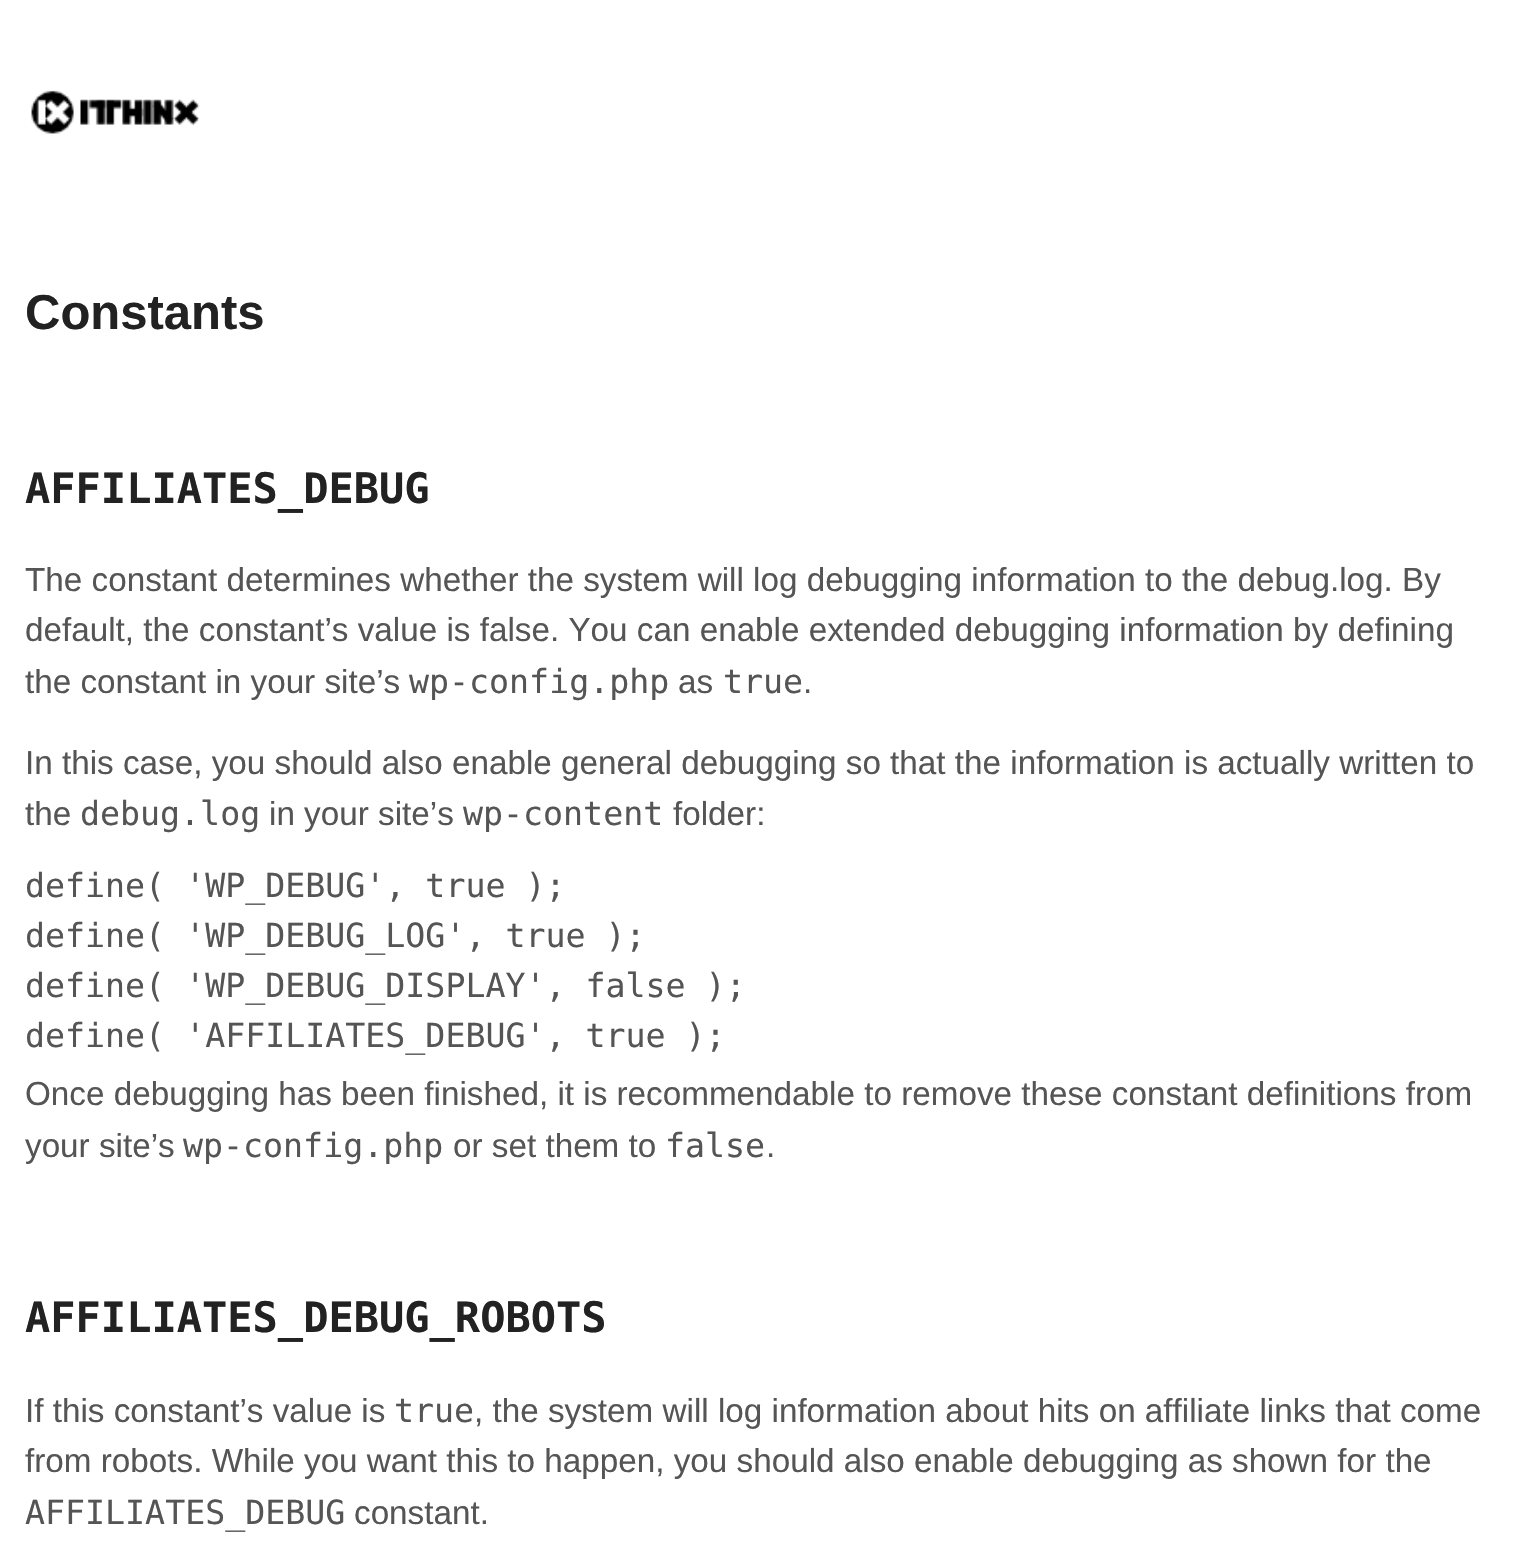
void draw(SkCanvas* canvas) {
  SkPaint paint;
  paint.setAntiAlias(true);
  auto face = [&](const char* family, int weight, float size, bool italic = false) {
    SkFontStyle style(weight, SkFontStyle::kNormal_Width,
      italic ? SkFontStyle::kItalic_Slant : SkFontStyle::kUpright_Slant);
    SkFont result(fontMgr->matchFamilyStyle(family, style), size);
    result.setSubpixel(true);
    return result;
  };
  auto paste = [&](const char* path, float x, float y, float w, float h) {
    auto image = SkImages::DeferredFromEncodedData(SkData::MakeFromFileName(path));
    canvas->drawImageRect(image, SkRect::MakeXYWH(x, y, w, h), SkSamplingOptions());
  };
  canvas->clear(0xffffffff);
  paste("img/1.png", 31, 90, 169, 44);
  auto f0 = face("Liberation Sans", 700, 49);
  paint.setColor(0xff222222);
  canvas->drawString("Constants", 25, 329, f0, paint);
  auto f1 = face("DejaVu Sans Mono", 700, 42);
  canvas->drawString("AFFILIATES_DEBUG", 25, 503, f1, paint);
  auto f2 = face("Liberation Sans", 400, 33.25f);
  paint.setColor(0xff555555);
  {
    const struct { const char* s; float x, y; } items[] = {
      {"The constant determines whether the system will log debugging information to the debug.log. By", 25, 591},
      {"default, the constant’s value is false. You can enable extended debugging information by defining", 25, 641},
      {"the constant in your site’s", 25, 693},
    };
    for (auto [s, x, y] : items) {
      canvas->drawString(s, x, y, f2, paint);
    }
  }
  auto f3 = face("DejaVu Sans Mono", 400, 33.25f);
  canvas->drawString("wp-config.php", 409, 693, f3, paint);
  canvas->drawString("as", 678, 693, f2, paint);
  canvas->drawString("true", 723, 693, f3, paint);
  {
    const struct { const char* s; float x, y; } items[] = {
      {".", 803, 693},
      {"In this case, you should also enable general debugging so that the information is actually written to", 25, 774},
      {"the", 25, 825},
    };
    for (auto [s, x, y] : items) {
      canvas->drawString(s, x, y, f2, paint);
    }
  }
  canvas->drawString("debug.log", 80, 825, f3, paint);
  canvas->drawString("in your site’s", 269, 825, f2, paint);
  canvas->drawString("wp-content", 463, 825, f3, paint);
  canvas->drawString("folder:", 673, 825, f2, paint);
  {
    const struct { const char* s; float x, y; } items[] = {
      {"define( 'WP_DEBUG', true );", 25, 897},
      {"define( 'WP_DEBUG_LOG', true );", 25, 947},
      {"define( 'WP_DEBUG_DISPLAY', false );", 25, 997},
      {"define( 'AFFILIATES_DEBUG', true );", 25, 1047},
    };
    for (auto [s, x, y] : items) {
      canvas->drawString(s, x, y, f3, paint);
    }
  }
  canvas->drawString("Once debugging has been finished, it is recommendable to remove these constant definitions from", 25, 1105, f2, paint);
  canvas->drawString("your site’s", 25, 1157, f2, paint);
  canvas->drawString("wp-config.php", 183, 1157, f3, paint);
  canvas->drawString("or set them to", 453, 1157, f2, paint);
  canvas->drawString("false", 665, 1157, f3, paint);
  canvas->drawString(".", 766, 1157, f2, paint);
  paint.setColor(0xff222222);
  canvas->drawString("AFFILIATES_DEBUG_ROBOTS", 25, 1332, f1, paint);
  paint.setColor(0xff555555);
  canvas->drawString("If this constant’s value is", 25, 1422, f2, paint);
  canvas->drawString("true", 394, 1422, f3, paint);
  canvas->drawString(", the system will log information about hits on affiliate links that come", 474, 1422, f2, paint);
  canvas->drawString("from robots. While you want this to happen, you should also enable debugging as shown for the", 25, 1472, f2, paint);
  canvas->drawString("AFFILIATES_DEBUG", 25, 1524, f3, paint);
  canvas->drawString("constant.", 354, 1524, f2, paint);
}
